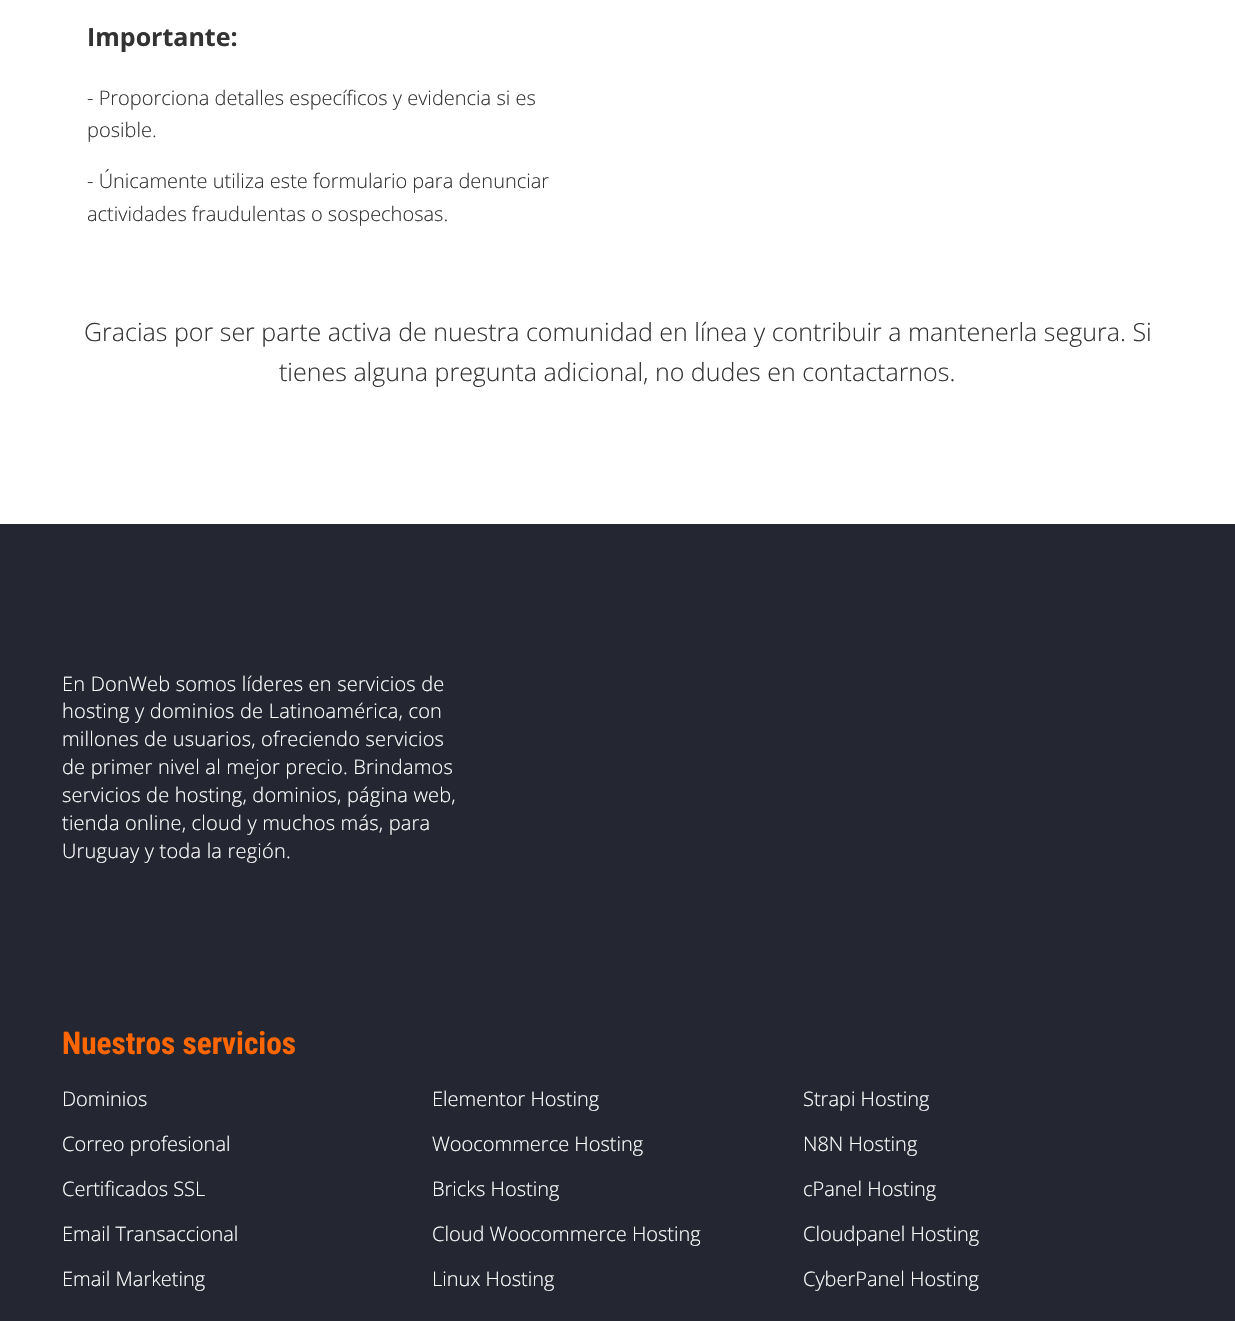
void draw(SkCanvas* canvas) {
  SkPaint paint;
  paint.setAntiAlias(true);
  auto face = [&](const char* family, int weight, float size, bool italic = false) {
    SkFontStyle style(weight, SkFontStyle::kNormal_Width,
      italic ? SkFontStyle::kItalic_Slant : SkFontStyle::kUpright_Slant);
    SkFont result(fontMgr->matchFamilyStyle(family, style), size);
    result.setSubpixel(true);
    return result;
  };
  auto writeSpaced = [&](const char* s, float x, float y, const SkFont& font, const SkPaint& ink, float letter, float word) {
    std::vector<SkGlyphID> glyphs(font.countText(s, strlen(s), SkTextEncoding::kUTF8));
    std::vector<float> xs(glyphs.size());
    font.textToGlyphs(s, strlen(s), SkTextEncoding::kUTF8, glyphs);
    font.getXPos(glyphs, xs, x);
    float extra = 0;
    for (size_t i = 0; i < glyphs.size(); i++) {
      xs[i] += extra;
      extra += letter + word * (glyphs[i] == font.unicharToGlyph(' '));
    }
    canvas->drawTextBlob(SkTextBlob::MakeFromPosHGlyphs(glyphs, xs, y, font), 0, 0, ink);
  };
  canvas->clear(0xffffffff);
  paint.setColor(0xff242632);
  canvas->drawRect(SkRect::MakeXYWH(0, 524, 1235, 797), paint);
  auto f0 = face("Open Sans", 700, 25);
  paint.setColor(0xff333333);
  canvas->drawString("Importante:", 87, 46, f0, paint);
  auto f1 = face("Open Sans", 300, 20);
  {
    const struct { const char* s; float x, y; } items[] = {
      {"- Proporciona detalles específicos y evidencia si es", 87, 105},
      {"posible.", 87, 137},
      {"- Únicamente utiliza este formulario para denunciar", 87, 188},
      {"actividades fraudulentas o sospechosas.", 87, 221},
    };
    for (auto [s, x, y] : items) {
      canvas->drawString(s, x, y, f1, paint);
    }
  }
  auto f2 = face("Open Sans", 300, 25);
  canvas->drawString("Gracias por ser parte activa de nuestra comunidad en línea y contribuir a mantenerla segura. Si", 84, 341, f2, paint);
  canvas->drawString("tienes alguna pregunta adicional, no dudes en contactarnos.", 279, 381, f2, paint);
  paint.setColor(0xffffffff);
  {
    const struct { const char* s; float x, y; } items[] = {
      {"En DonWeb somos líderes en servicios de", 62, 691},
      {"hosting y dominios de Latinoamérica, con", 62, 718},
      {"millones de usuarios, ofreciendo servicios", 62, 746},
      {"de primer nivel al mejor precio. Brindamos", 62, 774},
      {"servicios de hosting, dominios, página web,", 62, 802},
      {"tienda online, cloud y muchos más, para", 62, 830},
      {"Uruguay y toda la región.", 62, 858},
    };
    for (auto [s, x, y] : items) {
      writeSpaced(s, x, y, f1, paint, 0.2f, 0);
    }
  }
  auto f3 = face("Roboto Condensed", 700, 31.25f);
  paint.setColor(0xffff6600);
  canvas->drawString("Nuestros servicios", 62, 1054, f3, paint);
  paint.setColor(0xffffffff);
  {
    const struct { const char* s; float x, y; } items[] = {
      {"Dominios", 62, 1106},
      {"Correo profesional", 62, 1151},
      {"Certificados SSL", 62, 1196},
      {"Email Transaccional", 62, 1241},
      {"Email Marketing", 62, 1286},
      {"Elementor Hosting", 432, 1106},
      {"Woocommerce Hosting", 432, 1151},
      {"Bricks Hosting", 432, 1196},
      {"Cloud Woocommerce Hosting", 432, 1241},
      {"Linux Hosting", 432, 1286},
      {"Strapi Hosting", 803, 1106},
      {"N8N Hosting", 803, 1151},
      {"cPanel Hosting", 803, 1196},
      {"Cloudpanel Hosting", 803, 1241},
      {"CyberPanel Hosting", 803, 1286},
    };
    for (auto [s, x, y] : items) {
      canvas->drawString(s, x, y, f1, paint);
    }
  }
}
